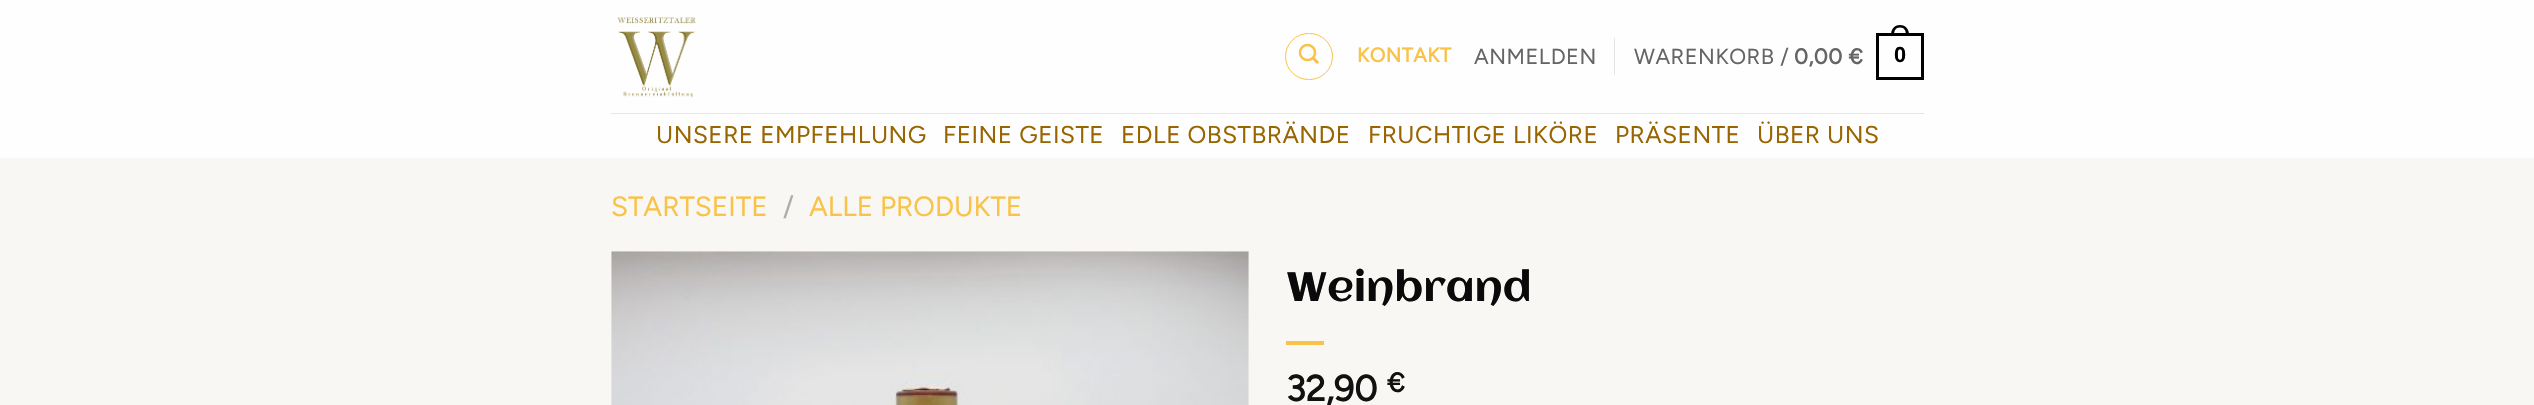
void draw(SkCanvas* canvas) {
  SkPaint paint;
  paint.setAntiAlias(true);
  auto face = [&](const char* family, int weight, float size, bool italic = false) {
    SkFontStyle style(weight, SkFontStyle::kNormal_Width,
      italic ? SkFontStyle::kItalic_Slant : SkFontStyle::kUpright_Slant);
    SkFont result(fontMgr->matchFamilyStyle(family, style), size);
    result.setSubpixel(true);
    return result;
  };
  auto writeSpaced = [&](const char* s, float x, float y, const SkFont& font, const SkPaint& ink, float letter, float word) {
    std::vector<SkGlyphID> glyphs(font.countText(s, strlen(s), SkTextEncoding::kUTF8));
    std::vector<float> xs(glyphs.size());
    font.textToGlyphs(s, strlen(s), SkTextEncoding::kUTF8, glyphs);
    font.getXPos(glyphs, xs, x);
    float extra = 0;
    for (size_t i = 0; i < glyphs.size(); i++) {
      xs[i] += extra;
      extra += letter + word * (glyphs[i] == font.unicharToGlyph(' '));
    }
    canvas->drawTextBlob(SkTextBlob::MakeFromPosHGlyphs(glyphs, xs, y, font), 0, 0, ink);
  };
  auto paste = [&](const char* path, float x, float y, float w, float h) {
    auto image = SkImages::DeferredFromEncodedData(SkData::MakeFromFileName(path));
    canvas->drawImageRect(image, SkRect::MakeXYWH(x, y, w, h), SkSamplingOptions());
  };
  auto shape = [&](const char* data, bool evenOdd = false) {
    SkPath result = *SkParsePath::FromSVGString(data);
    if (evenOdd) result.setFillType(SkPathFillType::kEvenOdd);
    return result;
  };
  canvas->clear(0xfff8f7f3);
  paint.setColor(0xfffefefe);
  canvas->drawRect(SkRect::MakeXYWH(0, 0, 2534, 158), paint);
  paste("img/1.png", 617, 17, 79, 81);
  paint.setStroke(true);
  paint.setStrokeWidth(1);
  paint.setColor(0xfff9c349);
  canvas->drawRoundRect(SkRect::MakeXYWH(1285.5f, 33.5f, 47, 46), 23, 23, paint);
  paste("img/2.png", 1298, 43, 21, 21);
  paint.setStroke(false);
  paint.setColor(0xffe5e5e5);
  canvas->drawRect(SkRect::MakeXYWH(1614, 38, 1, 37), paint);
  paint.setStroke(true);
  paint.setStrokeWidth(3);
  paint.setColor(0xff000000);
  canvas->drawRect(SkRect::MakeXYWH(1877.5f, 34.5f, 45, 44), paint);
  paint.setStroke(false);
  canvas->drawPath(shape("M1900 25C1906 25 1909 29.5 1909 35H1891C1891 29.5 1894 25 1900 25ZM1900 27.5C1904.5 27.5 1906 31 1906 35H1894C1894 31 1895.5 27.5 1900 27.5Z", true), paint);
  paint.setColor(0xffe6e6e6);
  canvas->drawRect(SkRect::MakeXYWH(611, 113, 1313, 1), paint);
  paste("img/3.png", 611, 251, 638, 154);
  paint.setColor(0xfff9c349);
  canvas->drawRect(SkRect::MakeXYWH(1286, 341, 38, 4), paint);
  auto f0 = face("Figtree", 700, 20);
  writeSpaced("KONTAKT", 1357, 62, f0, paint, 0.5f, 0);
  auto f1 = face("Figtree", 300, 21.75f);
  paint.setColor(0xff656565);
  writeSpaced("ANMELDEN", 1474, 64, f1, paint, 0.5f, 0);
  writeSpaced("WARENKORB /", 1634, 64, f1, paint, 0.5f, 0);
  auto f2 = face("Figtree", 700, 21.75f);
  writeSpaced("0,00 €", 1794, 64, f2, paint, 0.5f, 0);
  auto f3 = face("Liberation Sans", 700, 21.75f);
  paint.setColor(0xff000000);
  writeSpaced("0", 1894, 62, f3, paint, 0.5f, 0);
  auto f4 = face("Figtree", 300, 24.25f);
  paint.setColor(0xff996500);
  {
    const struct { const char* s; float x, y; } items[] = {
      {"UNSERE EMPFEHLUNG", 656, 143},
      {"FEINE GEISTE", 943, 143},
      {"EDLE OBSTBRÄNDE", 1121, 143},
      {"FRUCHTIGE LIKÖRE", 1368, 143},
      {"PRÄSENTE", 1615, 143},
      {"ÜBER UNS", 1757, 143},
    };
    for (auto [s, x, y] : items) {
      writeSpaced(s, x, y, f4, paint, 0.5f, 0);
    }
  }
  auto f5 = face("Figtree", 300, 27.75f);
  paint.setColor(0xfff9c349);
  canvas->drawString("STARTSEITE", 611, 216, f5, paint);
  paint.setColor(0xffadacaa);
  canvas->drawString("/", 783, 216, f5, paint);
  paint.setColor(0xfff9c349);
  canvas->drawString("ALLE PRODUKTE", 809, 216, f5, paint);
  auto f6 = face("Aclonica", 400, 41);
  paint.setColor(0xff0a0a0a);
  canvas->drawString("Weinbrand", 1286, 301, f6, paint);
  auto f7 = face("Figtree", 700, 36);
  paint.setColor(0xff111111);
  canvas->drawString("32,90", 1286, 401, f7, paint);
  auto f8 = face("Figtree", 700, 27);
  canvas->drawString("€", 1387, 392, f8, paint);
}
